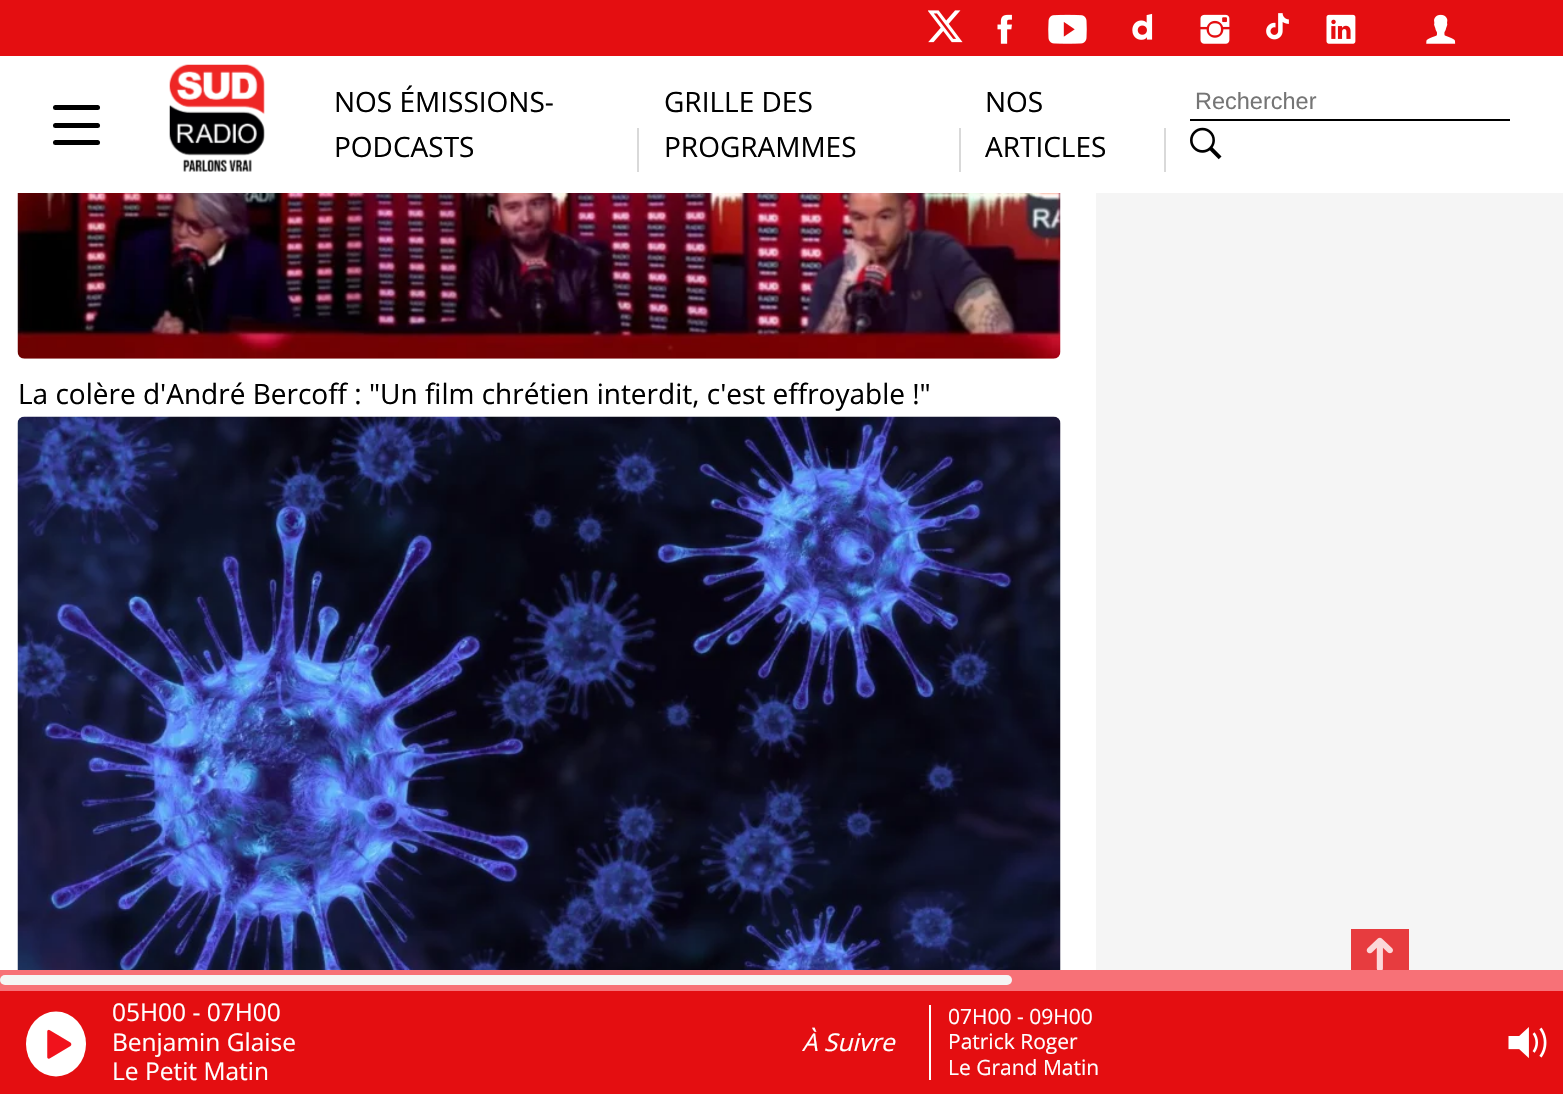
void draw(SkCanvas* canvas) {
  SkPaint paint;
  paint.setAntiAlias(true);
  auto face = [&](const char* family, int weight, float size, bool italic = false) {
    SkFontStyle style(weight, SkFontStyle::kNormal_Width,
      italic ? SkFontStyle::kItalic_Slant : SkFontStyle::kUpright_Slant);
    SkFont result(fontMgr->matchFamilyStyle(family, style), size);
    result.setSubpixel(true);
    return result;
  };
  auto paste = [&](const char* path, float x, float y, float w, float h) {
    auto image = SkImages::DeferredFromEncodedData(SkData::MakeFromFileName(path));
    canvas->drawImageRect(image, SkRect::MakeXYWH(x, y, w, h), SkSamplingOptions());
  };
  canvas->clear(0xfff5f5f5);
  paint.setColor(0xffe40e11);
  canvas->drawRect(SkRect::MakeXYWH(0, 0, 1563, 56), paint);
  paste("img/1.png", 928, 10, 35, 33);
  paste("img/2.png", 997, 14, 15, 30);
  paste("img/3.png", 1048, 14, 39, 30);
  paste("img/4.png", 1132, 13, 21, 27);
  paste("img/5.png", 1200, 14, 30, 30);
  paste("img/6.png", 1266, 13, 23, 27);
  paste("img/7.png", 1326, 14, 30, 30);
  paste("img/8.png", 1426, 14, 30, 30);
  paint.setColor(0xffffffff);
  canvas->drawRect(SkRect::MakeXYWH(0, 56, 1563, 137), paint);
  paste("img/9.png", 169, 64, 96, 108);
  {
    const struct { float x, y, w, h; SkColor color; } items[] = {
      {637, 128, 2, 44, 0xffd9d9d9},
      {959, 128, 2, 44, 0xffd9d9d9},
      {1164, 128, 2, 44, 0xffd9d9d9},
      {1190, 119, 320, 2, 0xff000000},
    };
    for (auto [x, y, w, h, color] : items) {
      paint.setColor(color);
      canvas->drawRect(SkRect::MakeXYWH(x, y, w, h), paint);
    }
  }
  paste("img/10.png", 1190, 127, 32, 33);
  canvas->drawRoundRect(SkRect::MakeXYWH(53, 105, 47, 5), 2.5f, 2.5f, paint);
  canvas->drawRoundRect(SkRect::MakeXYWH(53, 123, 47, 5), 2.5f, 2.5f, paint);
  canvas->drawRoundRect(SkRect::MakeXYWH(53, 140, 47, 5), 2.5f, 2.5f, paint);
  paint.setColor(0xffffffff);
  canvas->drawRect(SkRect::MakeXYWH(0, 193, 1096, 777), paint);
  paste("img/11.png", 17, 193, 1044, 166);
  paste("img/12.png", 17, 416, 1044, 554);
  paint.setColor(0xffe73c3f);
  canvas->drawRect(SkRect::MakeXYWH(1351, 929, 58, 41), paint);
  paste("img/13.png", 1366, 937, 27, 33);
  paint.setColor(0xffe40e11);
  canvas->drawRect(SkRect::MakeXYWH(0, 991, 1563, 103), paint);
  paint.setColor(0xfff77177);
  canvas->drawRect(SkRect::MakeXYWH(0, 970, 1563, 21), paint);
  paint.setColor(0xfff5f5f5);
  canvas->drawRoundRect(SkRect::MakeXYWH(0, 975, 1012, 10), 5, 5, paint);
  paint.setColor(0xffffffff);
  canvas->drawOval(SkRect::MakeXYWH(26, 1011.5f, 60, 65), paint);
  paste("img/14.png", 47, 1029, 25, 30);
  canvas->drawRect(SkRect::MakeXYWH(929, 1005, 2, 75), paint);
  paste("img/15.png", 1508, 1027, 39, 31);
  auto f0 = face("Open Sans", 400, 28);
  paint.setColor(0xff000000);
  {
    const struct { const char* s; float x, y; } items[] = {
      {"NOS ÉMISSIONS-", 334, 112},
      {"PODCASTS", 334, 157},
      {"GRILLE DES", 664, 112},
      {"PROGRAMMES", 664, 157},
      {"NOS", 985, 112},
      {"ARTICLES", 985, 157},
    };
    for (auto [s, x, y] : items) {
      canvas->drawString(s, x, y, f0, paint);
    }
  }
  auto f1 = face("Liberation Sans", 400, 23.5f);
  paint.setColor(0xff757575);
  canvas->drawString("Rechercher", 1195, 109, f1, paint);
  paint.setColor(0xff000000);
  canvas->drawString("La colère d'André Bercoff : \"Un film chrétien interdit, c'est effroyable !\"", 18, 404, f0, paint);
  auto f2 = face("Open Sans", 400, 24.5f);
  paint.setColor(0xffffffff);
  {
    const struct { const char* s; float x, y; } items[] = {
      {"05H00 - 07H00", 112, 1021},
      {"Benjamin Glaise", 112, 1051},
      {"Le Petit Matin", 112, 1080},
    };
    for (auto [s, x, y] : items) {
      canvas->drawString(s, x, y, f2, paint);
    }
  }
  auto f3 = face("Open Sans", 400, 24.5f, true);
  canvas->drawString("À Suivre", 802, 1051, f3, paint);
  auto f4 = face("Open Sans", 400, 21);
  {
    const struct { const char* s; float x, y; } items[] = {
      {"07H00 - 09H00", 948, 1024},
      {"Patrick Roger", 948, 1049},
      {"Le Grand Matin", 948, 1075},
    };
    for (auto [s, x, y] : items) {
      canvas->drawString(s, x, y, f4, paint);
    }
  }
}
